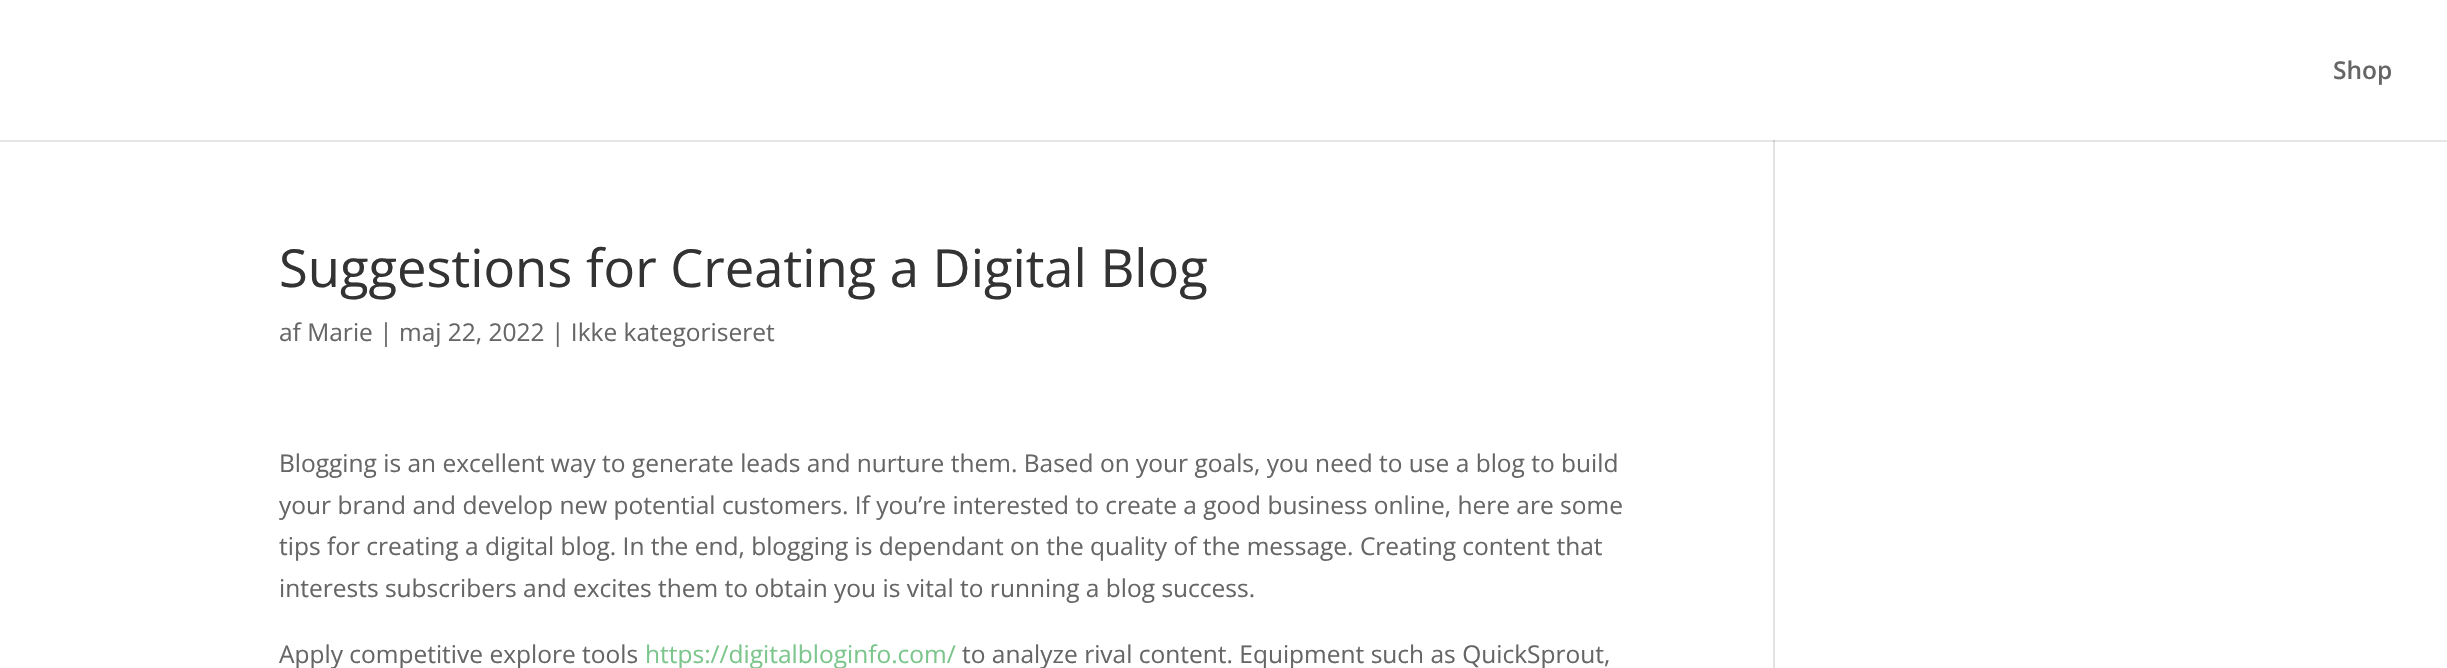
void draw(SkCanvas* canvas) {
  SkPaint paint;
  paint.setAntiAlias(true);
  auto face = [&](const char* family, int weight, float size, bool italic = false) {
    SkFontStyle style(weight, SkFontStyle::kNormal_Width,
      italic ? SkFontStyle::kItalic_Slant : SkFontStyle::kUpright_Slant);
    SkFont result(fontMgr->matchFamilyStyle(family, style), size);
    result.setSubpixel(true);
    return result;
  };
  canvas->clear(0xffffffff);
  {
    const struct { float x, y, w, h; SkColor color; } items[] = {
      {0, 140, 2447, 2, 0xffe6e6e6},
      {1773, 140, 2, 528, 0xffe2e2e2},
      {1773, 140, 2, 2, 0xffcbcbcb},
    };
    for (auto [x, y, w, h, color] : items) {
      paint.setColor(color);
      canvas->drawRect(SkRect::MakeXYWH(x, y, w, h), paint);
    }
  }
  auto f0 = face("Open Sans", 600, 24.5f);
  paint.setColor(0xff666666);
  canvas->drawString("Shop", 2333, 79, f0, paint);
  auto f1 = face("Open Sans", 400, 52.5f);
  paint.setColor(0xff333333);
  canvas->drawString("Suggestions for Creating a Digital Blog", 279, 287, f1, paint);
  auto f2 = face("Open Sans", 400, 24.5f);
  paint.setColor(0xff666666);
  {
    const struct { const char* s; float x, y; } items[] = {
      {"af Marie | maj 22, 2022 | Ikke kategoriseret", 279, 341},
      {"Blogging is an excellent way to generate leads and nurture them. Based on your goals, you need to use a blog to build", 279, 472},
      {"your brand and develop new potential customers. If you’re interested to create a good business online, here are some", 279, 514},
      {"tips for creating a digital blog. In the end, blogging is dependant on the quality of the message. Creating content that", 279, 555},
      {"interests subscribers and excites them to obtain you is vital to running a blog success.", 279, 597},
      {"Apply competitive explore tools", 279, 663},
    };
    for (auto [s, x, y] : items) {
      canvas->drawString(s, x, y, f2, paint);
    }
  }
  paint.setColor(0xff7cc68d);
  canvas->drawString("https://digitalbloginfo.com/", 645, 663, f2, paint);
  paint.setColor(0xff666666);
  canvas->drawString("to analyze rival content. Equipment such as QuickSprout,", 962, 663, f2, paint);
}
